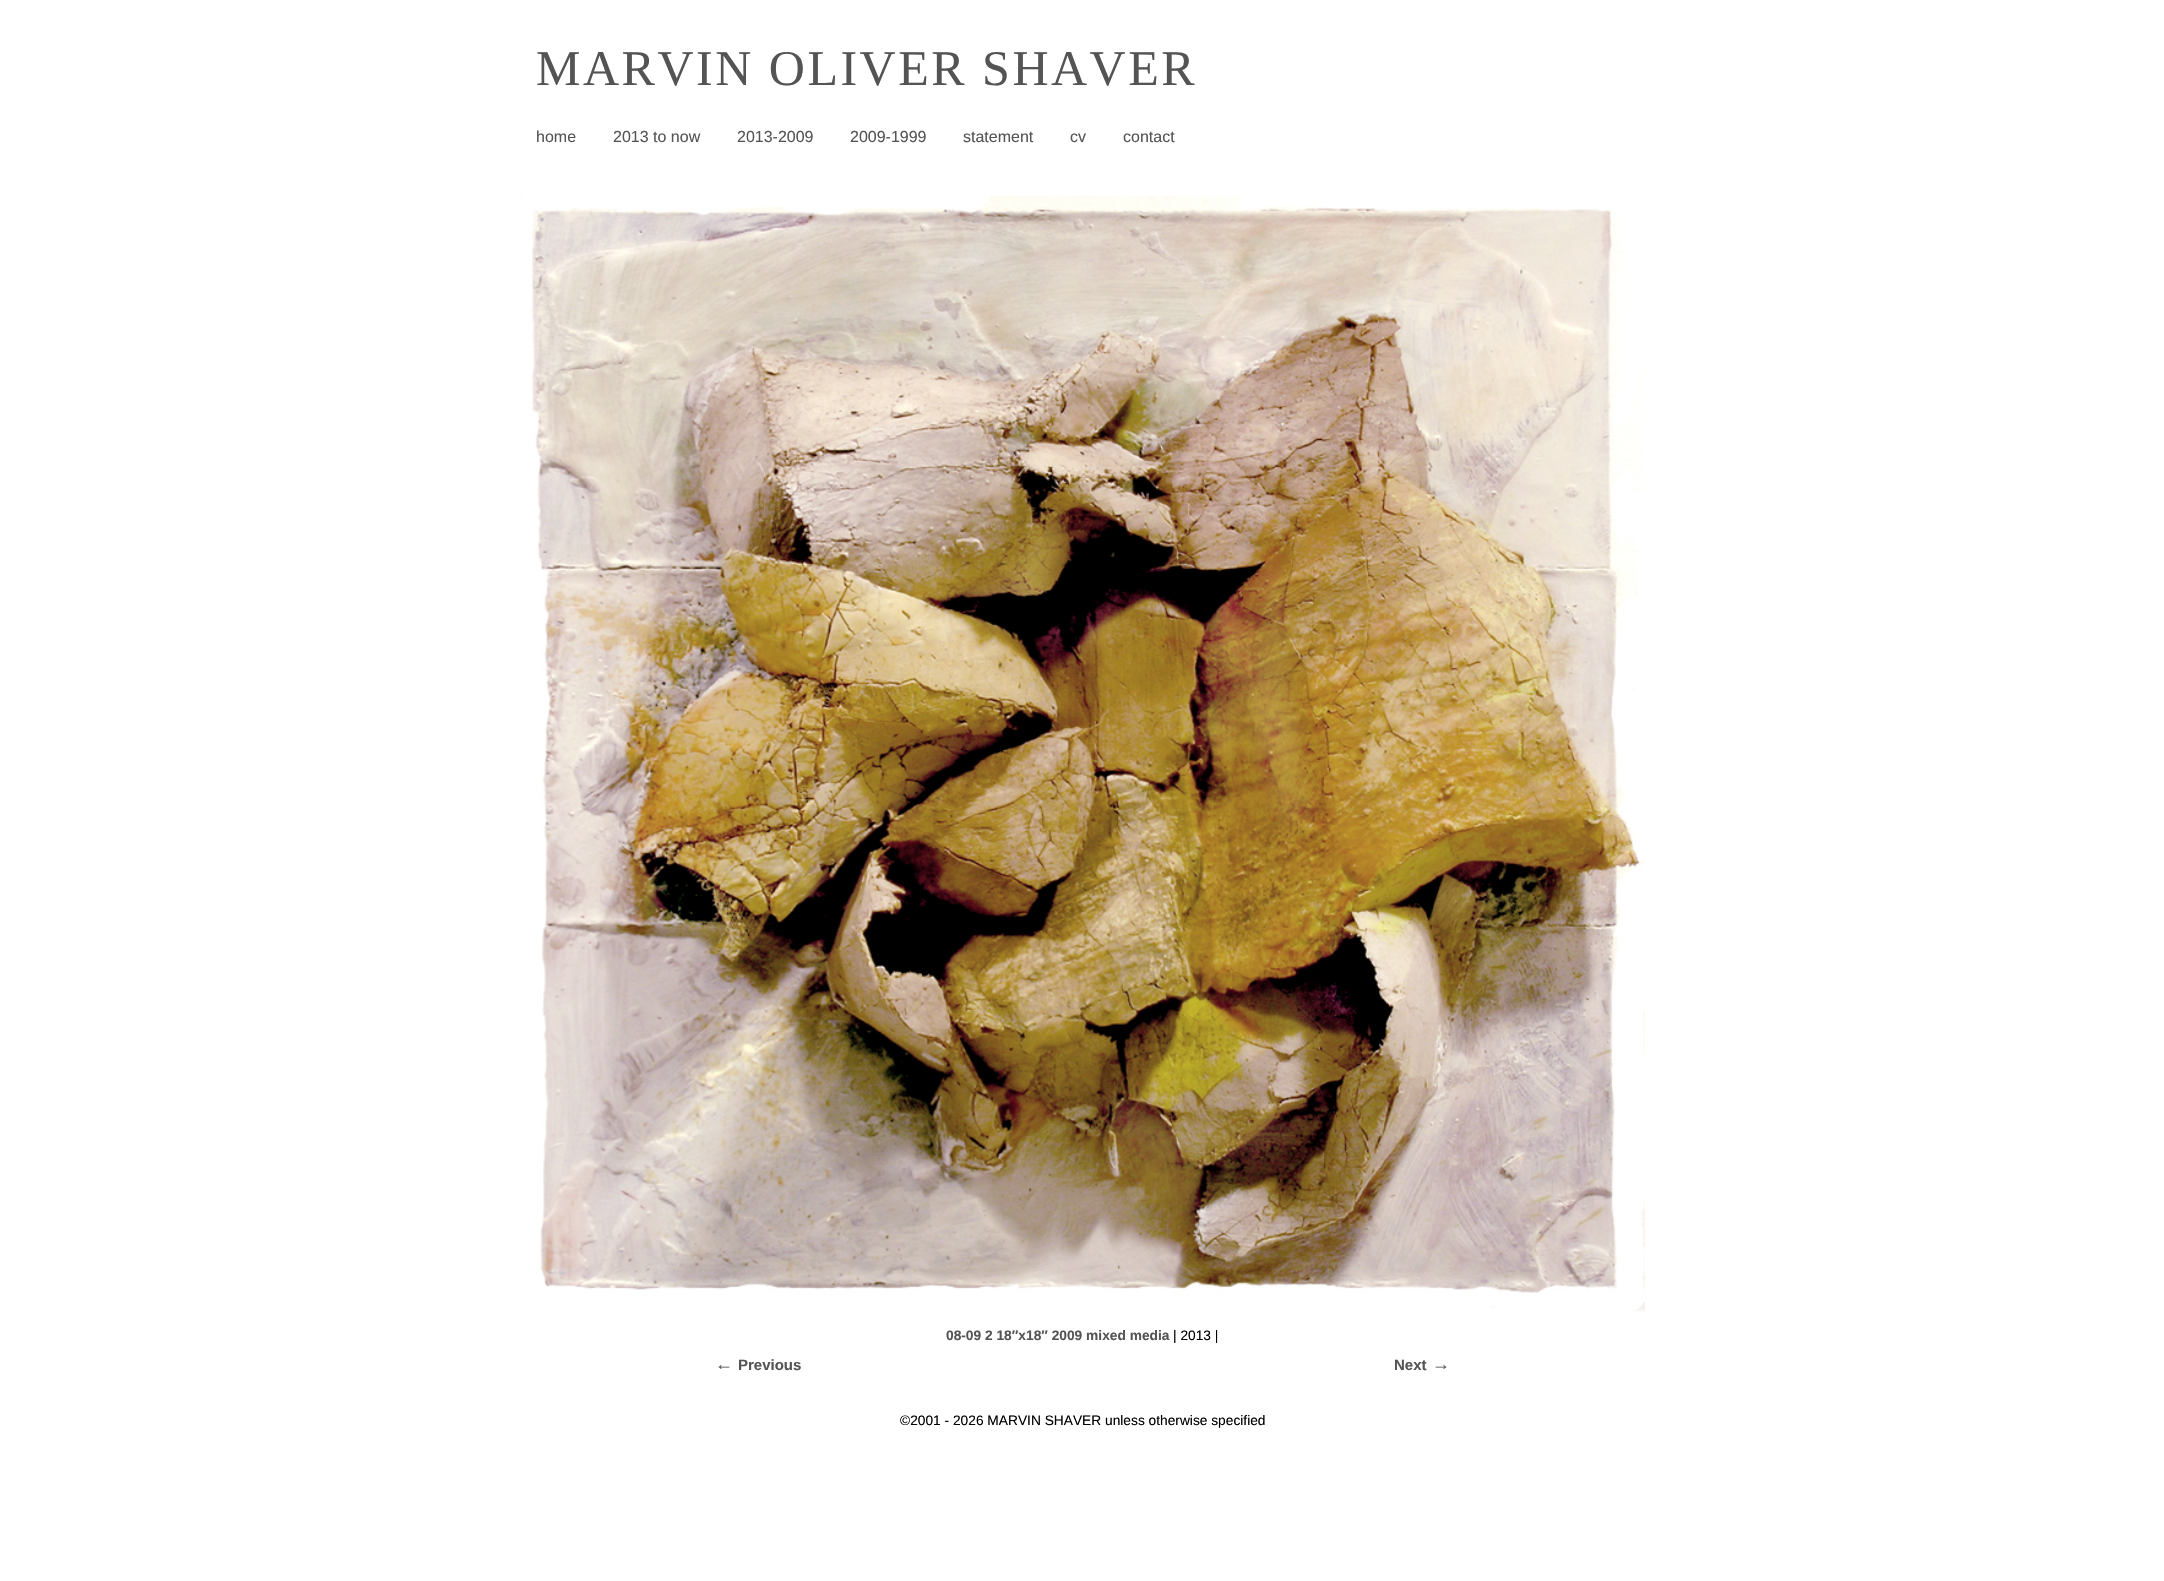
void draw(SkCanvas* canvas) {
  SkPaint paint;
  paint.setAntiAlias(true);
  auto face = [&](const char* family, int weight, float size, bool italic = false) {
    SkFontStyle style(weight, SkFontStyle::kNormal_Width,
      italic ? SkFontStyle::kItalic_Slant : SkFontStyle::kUpright_Slant);
    SkFont result(fontMgr->matchFamilyStyle(family, style), size);
    result.setSubpixel(true);
    return result;
  };
  auto writeSpaced = [&](const char* s, float x, float y, const SkFont& font, const SkPaint& ink, float letter, float word) {
    std::vector<SkGlyphID> glyphs(font.countText(s, strlen(s), SkTextEncoding::kUTF8));
    std::vector<float> xs(glyphs.size());
    font.textToGlyphs(s, strlen(s), SkTextEncoding::kUTF8, glyphs);
    font.getXPos(glyphs, xs, x);
    float extra = 0;
    for (size_t i = 0; i < glyphs.size(); i++) {
      xs[i] += extra;
      extra += letter + word * (glyphs[i] == font.unicharToGlyph(' '));
    }
    canvas->drawTextBlob(SkTextBlob::MakeFromPosHGlyphs(glyphs, xs, y, font), 0, 0, ink);
  };
  auto paste = [&](const char* path, float x, float y, float w, float h) {
    auto image = SkImages::DeferredFromEncodedData(SkData::MakeFromFileName(path));
    canvas->drawImageRect(image, SkRect::MakeXYWH(x, y, w, h), SkSamplingOptions());
  };
  canvas->clear(0xffffffff);
  paste("img/1.png", 520, 196, 1125, 1116);
  auto f0 = face("Liberation Serif", 400, 50);
  paint.setColor(0xff545454);
  writeSpaced("MARVIN OLIVER SHAVER", 536, 85, f0, paint, 2.5f, 0);
  auto f1 = face("Liberation Sans", 400, 16);
  {
    const struct { const char* s; float x, y; } items[] = {
      {"home", 536, 142},
      {"2013 to now", 613, 142},
      {"2013-2009", 737, 142},
      {"2009-1999", 850, 142},
      {"statement", 963, 142},
      {"cv", 1070, 142},
      {"contact", 1123, 142},
    };
    for (auto [s, x, y] : items) {
      canvas->drawString(s, x, y, f1, paint);
    }
  }
  auto f2 = face("Liberation Sans", 700, 13.75f);
  canvas->drawString("08-09 2 18″x18″ 2009 mixed media", 946, 1340, f2, paint);
  auto f3 = face("Liberation Sans", 400, 13.75f);
  paint.setColor(0xff000000);
  canvas->drawString("| 2013 |", 1173, 1340, f3, paint);
  auto f4 = face("Liberation Sans", 700, 18);
  paint.setColor(0xff545454);
  canvas->drawString("←", 715, 1370, f4, paint);
  auto f5 = face("Liberation Sans", 700, 15);
  canvas->drawString("Previous", 738, 1370, f5, paint);
  canvas->drawString("Next", 1394, 1370, f5, paint);
  canvas->drawString("→", 1432, 1370, f4, paint);
  paint.setColor(0xff000000);
  canvas->drawString("©2001 - 2026 MARVIN SHAVER unless otherwise specified", 900, 1425, f3, paint);
}
